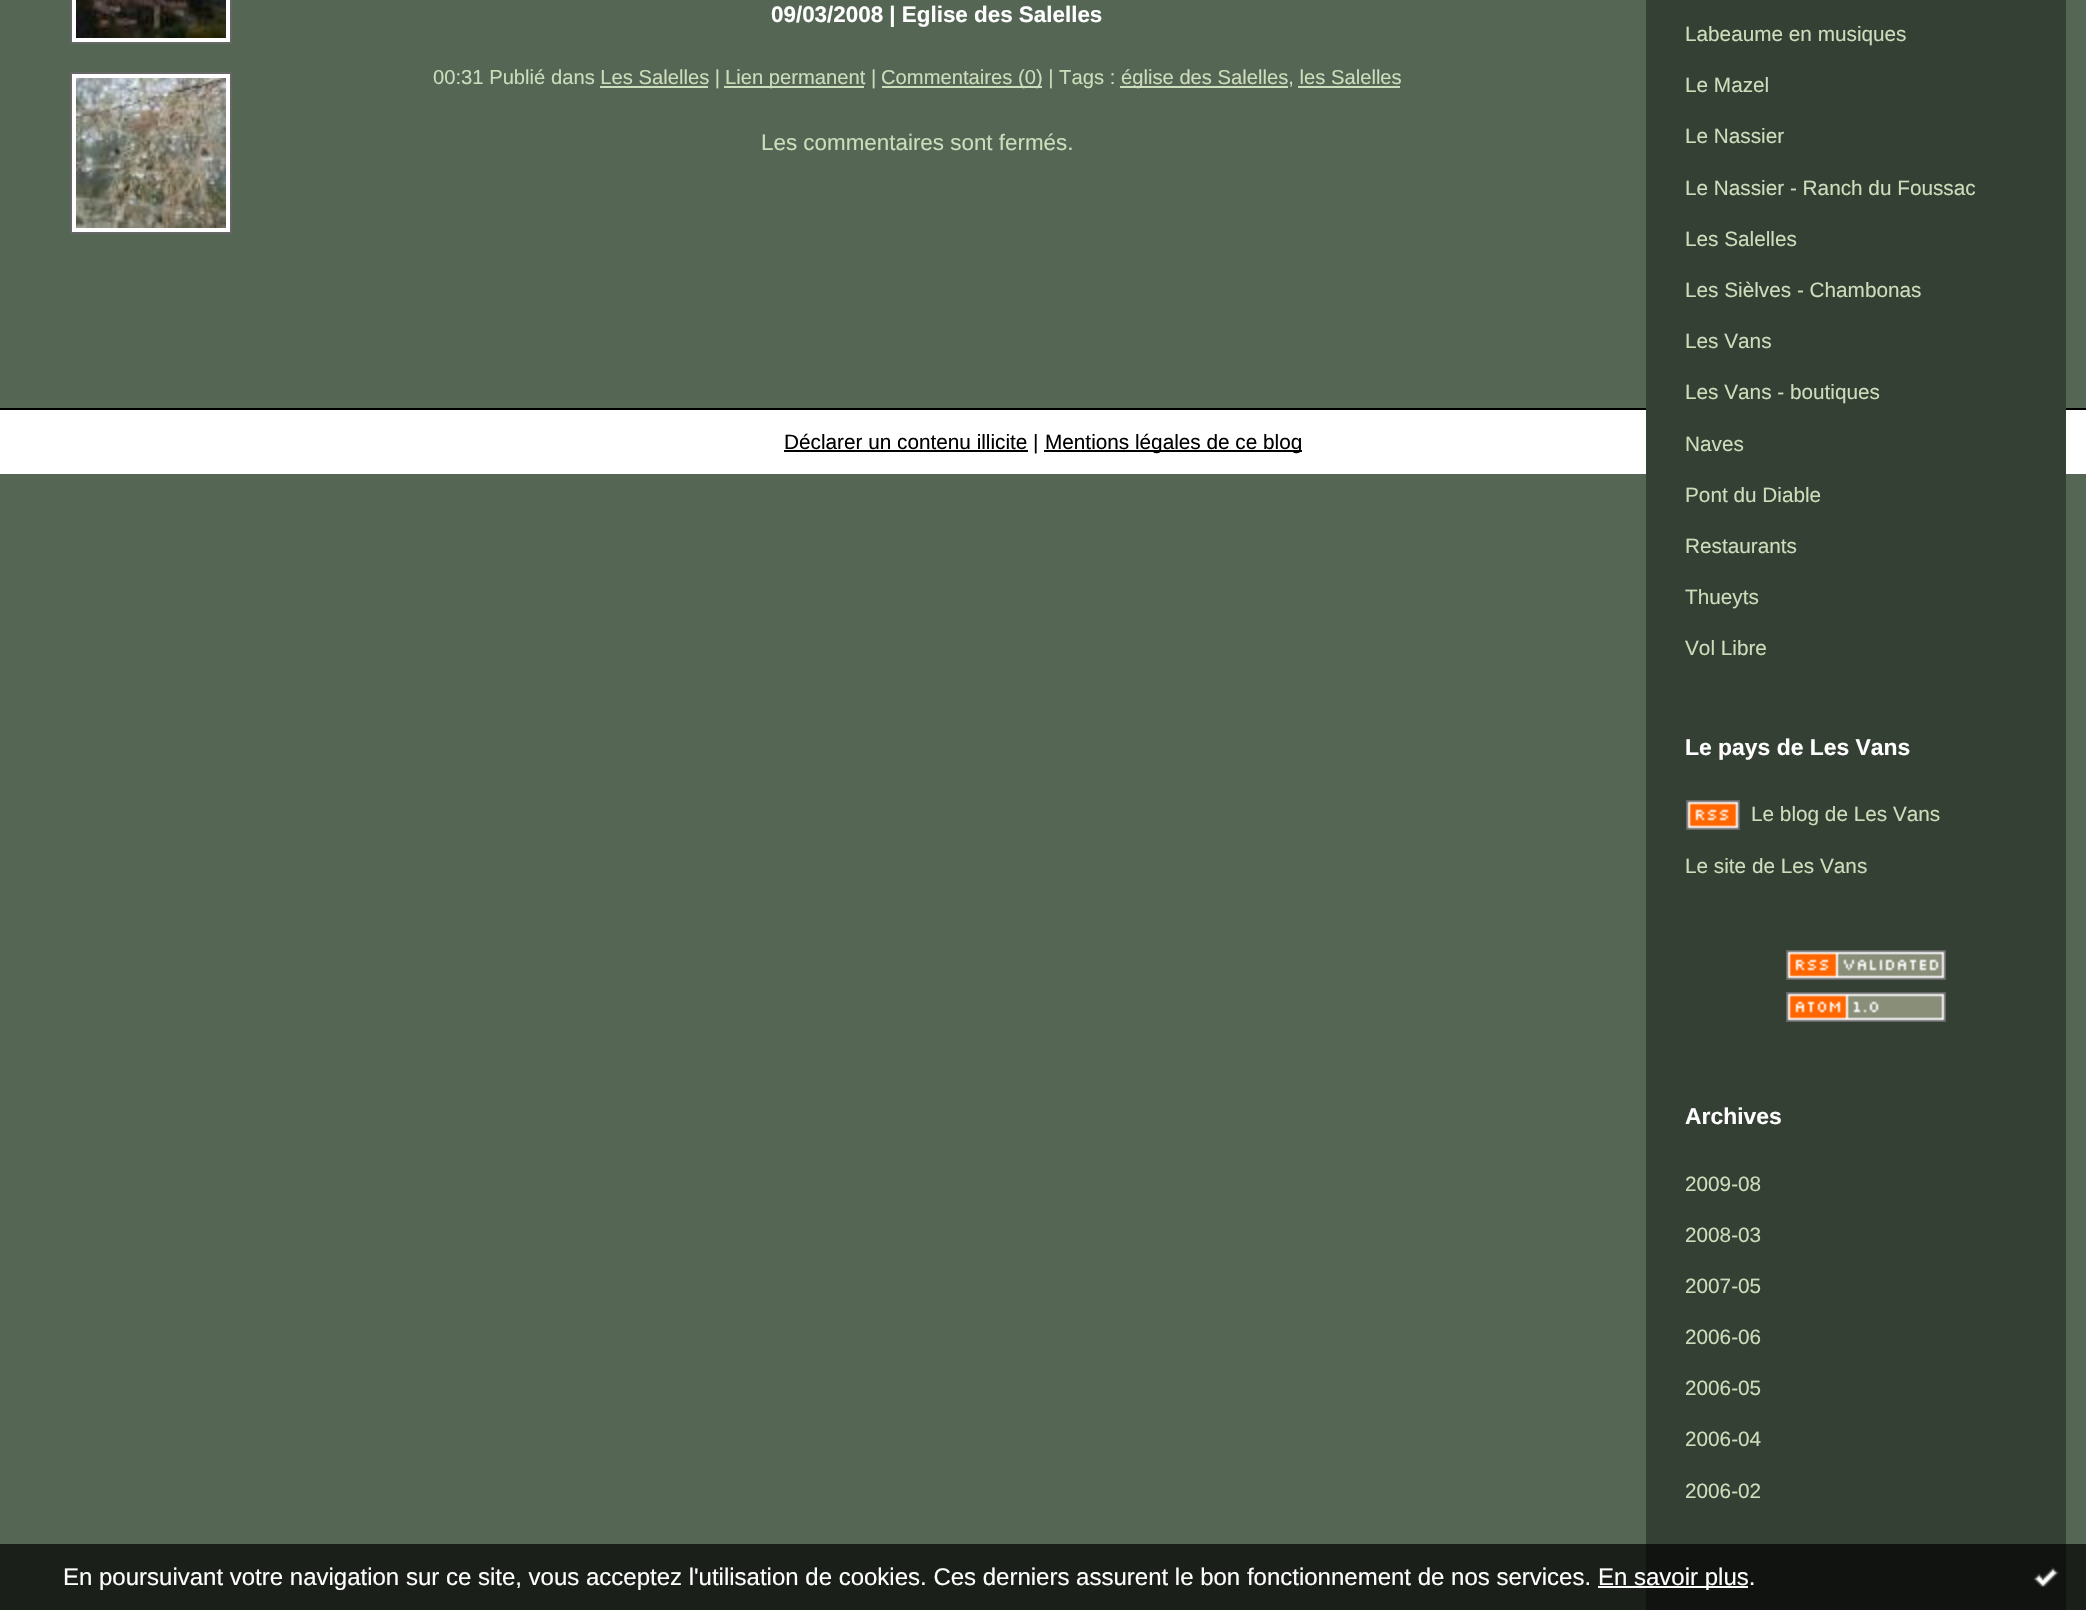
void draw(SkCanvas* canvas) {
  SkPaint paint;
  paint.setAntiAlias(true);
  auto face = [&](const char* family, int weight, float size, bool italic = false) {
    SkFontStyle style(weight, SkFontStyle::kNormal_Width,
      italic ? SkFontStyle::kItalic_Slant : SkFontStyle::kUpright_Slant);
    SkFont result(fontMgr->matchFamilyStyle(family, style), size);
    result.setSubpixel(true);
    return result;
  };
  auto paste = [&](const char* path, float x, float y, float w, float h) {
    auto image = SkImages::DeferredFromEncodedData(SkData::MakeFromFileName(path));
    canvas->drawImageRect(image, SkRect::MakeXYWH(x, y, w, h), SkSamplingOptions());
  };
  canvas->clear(0xff556655);
  {
    const struct { float x, y, w, h; SkColor color; } items[] = {
      {724, 86, 140, 2, 0xffccddbb},
      {882, 86, 160, 2, 0xffccddbb},
      {1120, 86, 168, 2, 0xffccddbb},
      {600, 86, 108, 2, 0xffccddbb},
      {1298, 86, 102, 2, 0xffccddbb},
    };
    for (auto [x, y, w, h, color] : items) {
      paint.setColor(color);
      canvas->drawRect(SkRect::MakeXYWH(x, y, w, h), paint);
    }
  }
  paint.setColor(0xffffffff);
  canvas->drawRect(SkRect::MakeXYWH(71, -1, 160, 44), paint);
  paint.setStroke(true);
  paint.setStrokeWidth(2);
  paint.setColor(0xff666666);
  canvas->drawRect(SkRect::MakeXYWH(71, -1, 160, 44), paint);
  paste("img/1.png", 76, 0, 150, 38);
  paint.setStroke(false);
  paint.setColor(0xffffffff);
  canvas->drawRect(SkRect::MakeXYWH(71, 73, 160, 160), paint);
  paint.setStroke(true);
  paint.setColor(0xff666666);
  canvas->drawRect(SkRect::MakeXYWH(71, 73, 160, 160), paint);
  paste("img/2.png", 76, 78, 150, 150);
  paint.setStroke(false);
  {
    const struct { float x, y, w, h; SkColor color; } items[] = {
      {0, 410, 2086, 64, 0xffffffff},
      {0, 408, 2086, 2, 0xff000000},
      {1646, 0, 420, 1610, 0xff354035},
    };
    for (auto [x, y, w, h, color] : items) {
      paint.setColor(color);
      canvas->drawRect(SkRect::MakeXYWH(x, y, w, h), paint);
    }
  }
  paste("img/3.png", 1686, 800, 54, 30);
  paste("img/4.png", 1786, 950, 160, 30);
  paste("img/5.png", 1786, 992, 160, 30);
  {
    const struct { float x, y, w, h; SkColor color; } items[] = {
      {784, 450, 244, 2, 0xff000000},
      {1044, 450, 258, 2, 0xff000000},
      {0, 1544, 2086, 66, 0xb3000000},
      {1598, 1586, 150, 2, 0xffffffff},
    };
    for (auto [x, y, w, h, color] : items) {
      paint.setColor(color);
      canvas->drawRect(SkRect::MakeXYWH(x, y, w, h), paint);
    }
  }
  paste("img/6.png", 2033, 1567, 26, 20);
  auto f0 = face("Liberation Sans", 700, 22.4f);
  canvas->drawString("09/03/2008 | Eglise des Salelles", 771, 22, f0, paint);
  auto f1 = face("Liberation Sans", 400, 20.2f);
  paint.setColor(0xffccddbb);
  {
    const struct { const char* s; float x, y; } items[] = {
      {"00:31 Publié dans Les Salelles |", 433, 84},
      {"Lien permanent |", 725, 84},
      {"Commentaires (0) | Tags :", 881, 84},
      {"église des Salelles, les Salelles", 1121, 84},
    };
    for (auto [s, x, y] : items) {
      canvas->drawString(s, x, y, f1, paint);
    }
  }
  auto f2 = face("Liberation Sans", 400, 22.4f);
  canvas->drawString("Les commentaires sont fermés.", 761, 150, f2, paint);
  auto f3 = face("Liberation Sans", 400, 20.75f);
  {
    const struct { const char* s; float x, y; } items[] = {
      {"Labeaume en musiques", 1685, 41},
      {"Le Mazel", 1685, 92},
      {"Le Nassier", 1685, 143},
      {"Le Nassier - Ranch du Foussac", 1685, 195},
      {"Les Salelles", 1685, 246},
      {"Les Sièlves - Chambonas", 1685, 297},
      {"Les Vans", 1685, 348},
      {"Les Vans - boutiques", 1685, 399},
      {"Naves", 1685, 451},
      {"Pont du Diable", 1685, 502},
      {"Restaurants", 1685, 553},
      {"Thueyts", 1685, 604},
      {"Vol Libre", 1685, 655},
    };
    for (auto [s, x, y] : items) {
      canvas->drawString(s, x, y, f3, paint);
    }
  }
  auto f4 = face("Liberation Sans", 700, 22.9f);
  paint.setColor(0xffffffff);
  canvas->drawString("Le pays de Les Vans", 1685, 755, f4, paint);
  paint.setColor(0xffccddbb);
  canvas->drawString("Le blog de Les Vans", 1751, 821, f3, paint);
  canvas->drawString("Le site de Les Vans", 1685, 873, f3, paint);
  paint.setColor(0xffffffff);
  canvas->drawString("Archives", 1685, 1124, f4, paint);
  paint.setColor(0xffccddbb);
  {
    const struct { const char* s; float x, y; } items[] = {
      {"2009-08", 1685, 1191},
      {"2008-03", 1685, 1242},
      {"2007-05", 1685, 1293},
      {"2006-06", 1685, 1344},
      {"2006-05", 1685, 1395},
      {"2006-04", 1685, 1446},
      {"2006-02", 1685, 1498},
    };
    for (auto [s, x, y] : items) {
      canvas->drawString(s, x, y, f3, paint);
    }
  }
  paint.setColor(0xff000000);
  canvas->drawString("Déclarer un contenu illicite |", 784, 449, f3, paint);
  canvas->drawString("Mentions légales de ce blog", 1045, 449, f3, paint);
  auto f5 = face("Liberation Sans", 400, 24);
  paint.setColor(0xffffffff);
  canvas->drawString("En poursuivant votre navigation sur ce site, vous acceptez l'utilisation de cookies. Ces derniers assurent le bon fonctionnement de nos services.", 63, 1585, f5, paint);
  canvas->drawString("En savoir plus.", 1598, 1585, f5, paint);
}
